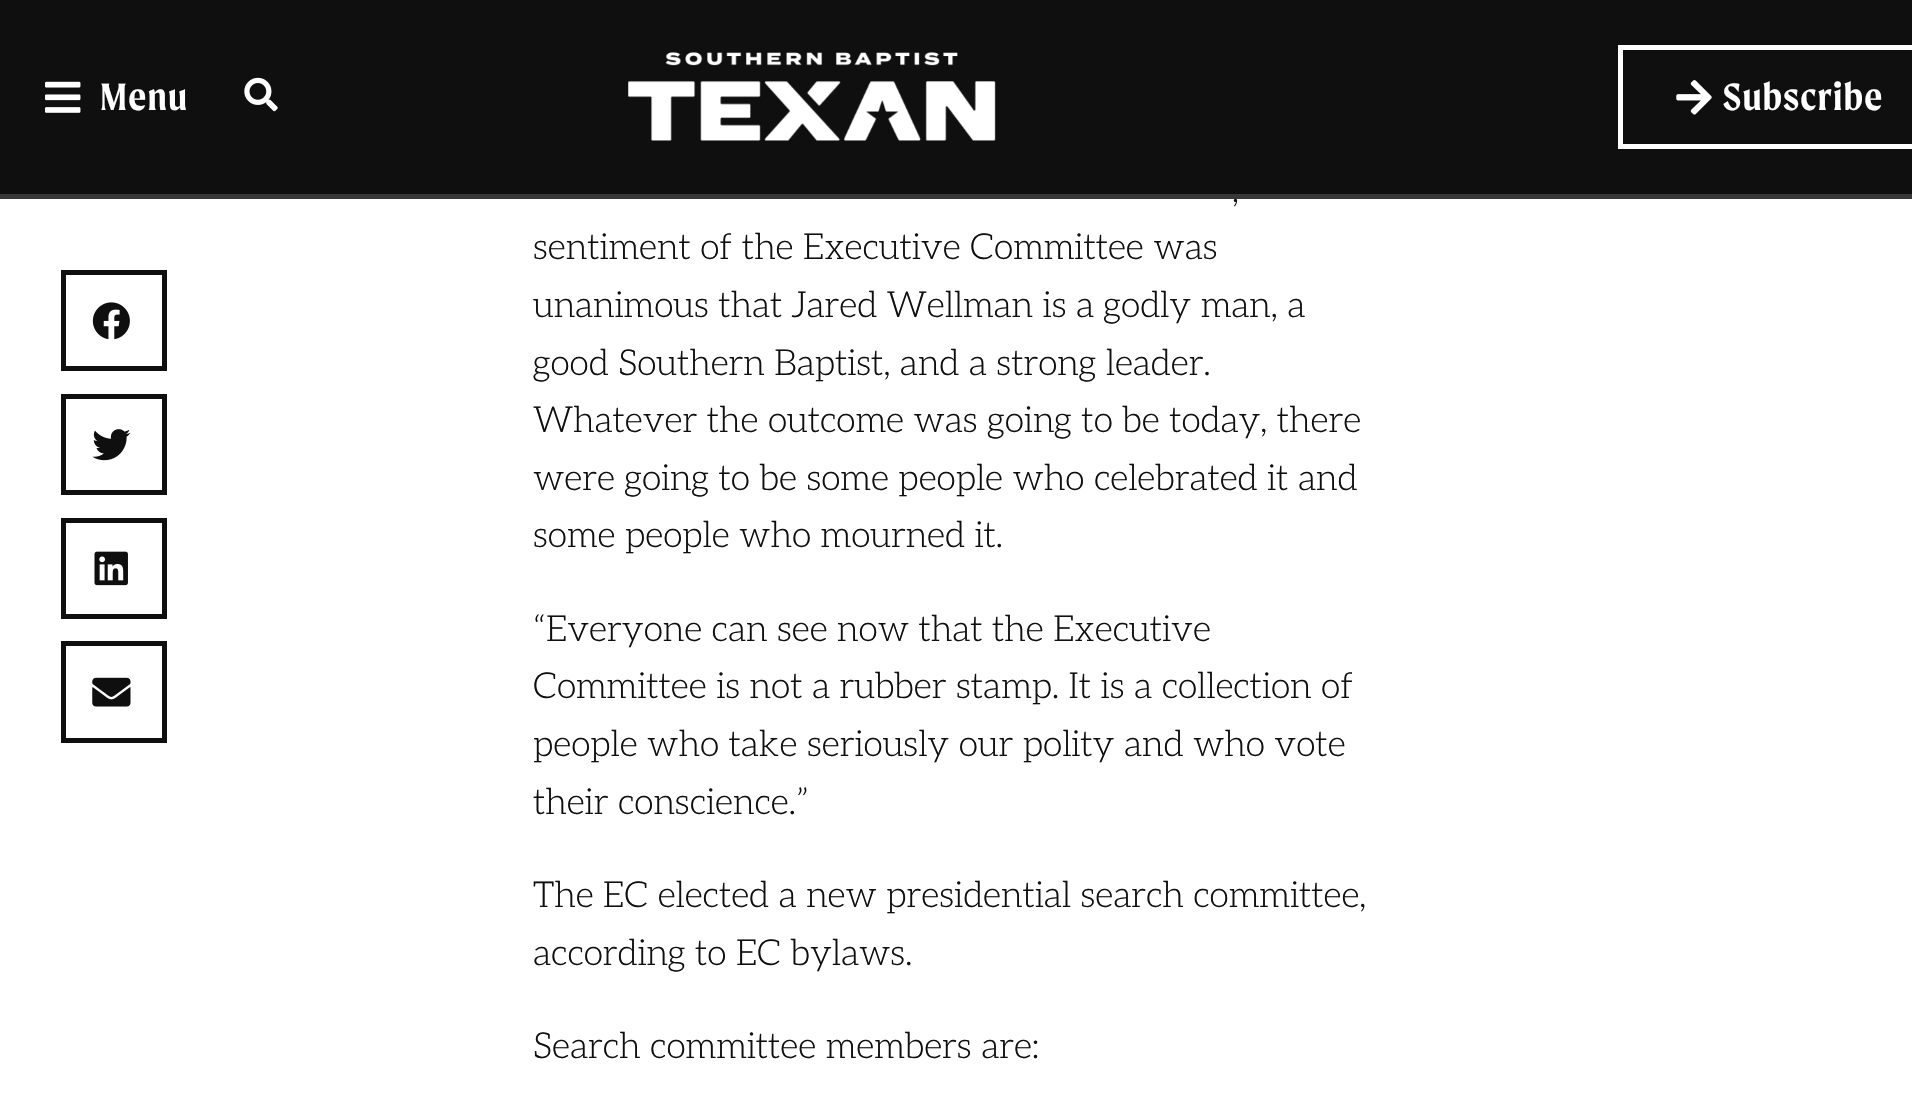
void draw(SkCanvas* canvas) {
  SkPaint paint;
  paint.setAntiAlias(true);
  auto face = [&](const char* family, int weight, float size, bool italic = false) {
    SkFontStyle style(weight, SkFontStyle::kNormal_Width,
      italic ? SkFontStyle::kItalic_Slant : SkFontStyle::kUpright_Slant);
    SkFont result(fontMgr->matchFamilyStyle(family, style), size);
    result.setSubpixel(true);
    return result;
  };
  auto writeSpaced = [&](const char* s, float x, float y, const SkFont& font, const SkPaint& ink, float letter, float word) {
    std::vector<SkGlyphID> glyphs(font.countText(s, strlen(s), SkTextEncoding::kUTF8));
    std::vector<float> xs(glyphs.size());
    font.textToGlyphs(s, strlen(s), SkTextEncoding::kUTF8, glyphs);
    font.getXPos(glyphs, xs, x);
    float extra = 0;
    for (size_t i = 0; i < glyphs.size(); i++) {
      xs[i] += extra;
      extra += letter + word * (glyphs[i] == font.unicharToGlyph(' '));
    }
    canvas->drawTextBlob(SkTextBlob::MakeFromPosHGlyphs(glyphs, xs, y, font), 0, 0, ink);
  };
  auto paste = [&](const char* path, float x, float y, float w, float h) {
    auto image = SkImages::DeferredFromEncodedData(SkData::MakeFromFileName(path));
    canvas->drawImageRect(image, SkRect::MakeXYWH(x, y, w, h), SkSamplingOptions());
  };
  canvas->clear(0xffffffff);
  paint.setColor(0xff0f0f0f);
  canvas->drawRect(SkRect::MakeXYWH(0, 0, 1912, 194), paint);
  paste("img/1.png", 45, 81, 36, 32);
  paste("img/2.png", 244, 77, 34, 35);
  paste("img/3.png", 628, 52, 368, 89);
  paint.setStroke(true);
  paint.setStrokeWidth(5);
  paint.setColor(0xffffffff);
  canvas->drawRect(SkRect::MakeXYWH(1620.5f, 47.5f, 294, 99), paint);
  paste("img/4.png", 1676, 80, 36, 35);
  paint.setColor(0xff0f0f0f);
  canvas->drawRect(SkRect::MakeXYWH(63.5f, 272.5f, 101, 96), paint);
  paste("img/5.png", 92, 302, 38, 38);
  canvas->drawRect(SkRect::MakeXYWH(63.5f, 396.5f, 101, 96), paint);
  paste("img/6.png", 92, 429, 39, 32);
  canvas->drawRect(SkRect::MakeXYWH(63.5f, 520.5f, 101, 96), paint);
  paste("img/7.png", 94, 551, 34, 35);
  canvas->drawRect(SkRect::MakeXYWH(63.5f, 643.5f, 101, 97), paint);
  paste("img/8.png", 92, 677, 39, 30);
  auto f0 = face("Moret", 600, 40.5f);
  paint.setStroke(false);
  paint.setColor(0xffffffff);
  writeSpaced("Menu", 100, 110, f0, paint, 1.25f, 0);
  writeSpaced("Subscribe", 1723, 110, f0, paint, 1.25f, 0);
  auto f1 = face("Aleo", 300, 36);
  paint.setColor(0xff0f0f0f);
  canvas->drawString(",", 1232, 202, f1, paint);
  paint.setColor(0xff383838);
  canvas->drawRect(SkRect::MakeXYWH(0, 194, 1912, 5), paint);
  paint.setColor(0xff0f0f0f);
  {
    const struct { const char* s; float x, y; } items[] = {
      {"sentiment of the Executive Committee was", 533, 259},
      {"unanimous that Jared Wellman is a godly man, a", 533, 317},
      {"good Southern Baptist, and a strong leader.", 533, 375},
      {"Whatever the outcome was going to be today, there", 533, 432},
      {"were going to be some people who celebrated it and", 533, 490},
      {"some people who mourned it.", 533, 547},
      {"“Everyone can see now that the Executive", 533, 641},
      {"Committee is not a rubber stamp. It is a collection of", 533, 698},
      {"people who take seriously our polity and who vote", 533, 756},
      {"their conscience.”", 533, 814},
      {"The EC elected a new presidential search committee,", 533, 907},
      {"according to EC bylaws.", 533, 965},
      {"Search committee members are:", 533, 1058},
    };
    for (auto [s, x, y] : items) {
      canvas->drawString(s, x, y, f1, paint);
    }
  }
}
